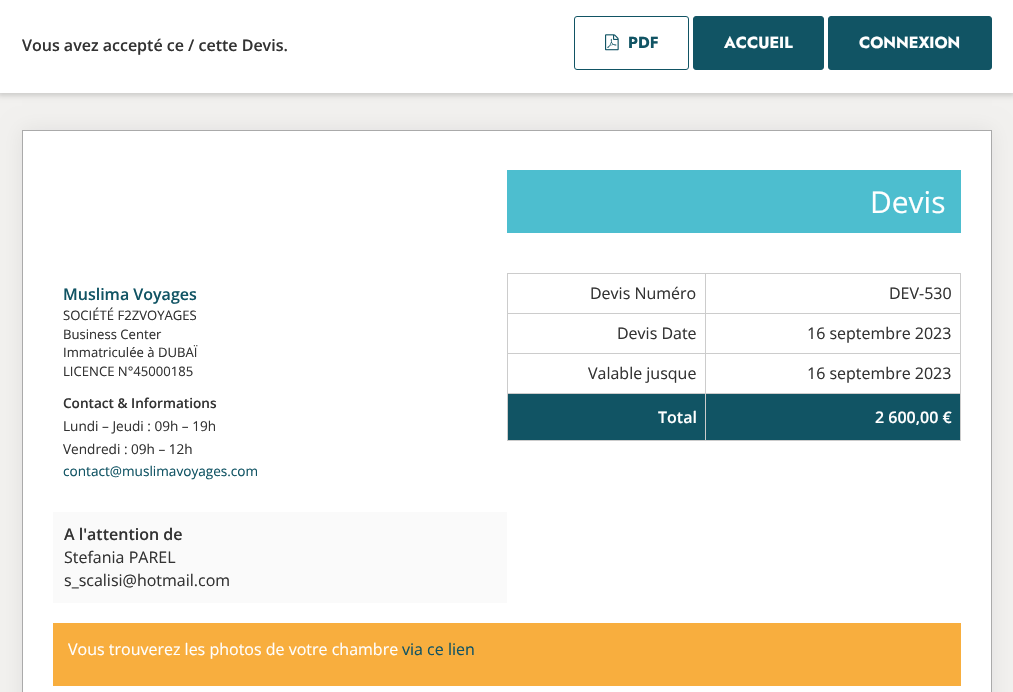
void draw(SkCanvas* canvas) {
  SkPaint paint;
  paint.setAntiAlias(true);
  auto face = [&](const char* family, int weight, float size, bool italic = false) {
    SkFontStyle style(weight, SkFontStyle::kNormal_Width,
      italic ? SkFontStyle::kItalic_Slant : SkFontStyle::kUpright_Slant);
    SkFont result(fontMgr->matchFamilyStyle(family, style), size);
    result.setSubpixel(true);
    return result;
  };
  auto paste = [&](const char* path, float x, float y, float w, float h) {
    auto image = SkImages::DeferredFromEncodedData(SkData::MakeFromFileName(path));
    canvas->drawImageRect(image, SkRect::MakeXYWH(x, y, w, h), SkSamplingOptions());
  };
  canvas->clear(0xfff2f1ef);
  paint.setColor(0x26000000);
  paint.setMaskFilter(SkMaskFilter::MakeBlur(kNormal_SkBlurStyle, 2.5f));
  canvas->drawRect(SkRect::MakeXYWH(-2, -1, 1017, 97), paint);
  paint.setMaskFilter(nullptr);
  paint.setColor(0xffffffff);
  canvas->drawRect(SkRect::MakeXYWH(0, 0, 1013, 93), paint);
  paint.setStroke(true);
  paint.setStrokeWidth(1);
  paint.setColor(0xff115464);
  canvas->drawRoundRect(SkRect::MakeXYWH(574.5f, 16.5f, 114, 53), 2.5f, 2.5f, paint);
  paste("img/1.png", 605, 34, 14, 17);
  paint.setStroke(false);
  canvas->drawRoundRect(SkRect::MakeXYWH(693.5f, 16.5f, 130, 53), 2.5f, 2.5f, paint);
  paint.setStroke(true);
  canvas->drawRoundRect(SkRect::MakeXYWH(693.5f, 16.5f, 130, 53), 2.5f, 2.5f, paint);
  paint.setStroke(false);
  canvas->drawRoundRect(SkRect::MakeXYWH(828.5f, 16.5f, 163, 53), 2.5f, 2.5f, paint);
  paint.setStroke(true);
  canvas->drawRoundRect(SkRect::MakeXYWH(828.5f, 16.5f, 163, 53), 2.5f, 2.5f, paint);
  paint.setStroke(false);
  paint.setColor(0x12000000);
  paint.setMaskFilter(SkMaskFilter::MakeBlur(kNormal_SkBlurStyle, 10));
  canvas->drawRect(SkRect::MakeXYWH(22, 130, 970, 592), paint);
  paint.setMaskFilter(nullptr);
  paint.setColor(0xffffffff);
  canvas->drawRect(SkRect::MakeXYWH(22.5f, 130.5f, 969, 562), paint);
  paint.setStroke(true);
  paint.setColor(0xffaaaaaa);
  canvas->drawRect(SkRect::MakeXYWH(22.5f, 130.5f, 969, 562), paint);
  paint.setStroke(false);
  {
    const struct { float x, y, w, h; SkColor color; } items[] = {
      {507, 170, 454, 63, 0xff4dbecf},
      {507, 273, 454, 1, 0xffcccccc},
      {960, 273, 1, 168, 0xffcccccc},
      {507, 440, 454, 1, 0xffcccccc},
      {507, 273, 1, 168, 0xffcccccc},
      {705, 313, 256, 1, 0xffcccccc},
      {705, 353, 256, 1, 0xffcccccc},
      {705, 393, 256, 1, 0xffcccccc},
      {705, 393, 1, 48, 0xffcccccc},
      {507, 393, 199, 1, 0xffcccccc},
      {705, 353, 1, 41, 0xffcccccc},
      {507, 353, 199, 1, 0xffcccccc},
      {705, 313, 1, 41, 0xffcccccc},
      {507, 313, 199, 1, 0xffcccccc},
      {705, 273, 1, 41, 0xffcccccc},
      {508, 394, 197, 46, 0xff115464},
      {706, 394, 254, 46, 0xff115464},
      {53, 512, 454, 91, 0xfffafafa},
      {53, 623, 908, 63, 0xfff8ae3e},
    };
    for (auto [x, y, w, h, color] : items) {
      paint.setColor(color);
      canvas->drawRect(SkRect::MakeXYWH(x, y, w, h), paint);
    }
  }
  auto f0 = face("Open Sans", 600, 16);
  paint.setColor(0xff333333);
  canvas->drawString("Vous avez accepté ce / cette Devis.", 22, 51, f0, paint);
  auto f1 = face("Jost", 700, 16);
  paint.setColor(0xff115464);
  canvas->drawString("PDF", 628, 48, f1, paint);
  paint.setColor(0xffffffff);
  canvas->drawString("ACCUEIL", 724, 48, f1, paint);
  canvas->drawString("CONNEXION", 859, 48, f1, paint);
  auto f2 = face("Open Sans", 400, 30);
  canvas->drawString("Devis", 870, 213, f2, paint);
  paint.setColor(0xff115464);
  canvas->drawString("Muslima Voyages", 63, 300, f0, paint);
  auto f3 = face("Open Sans", 400, 13.1f);
  paint.setColor(0xff333333);
  {
    const struct { const char* s; float x, y; } items[] = {
      {"SOCIÉTÉ F2ZVOYAGES", 63, 320},
      {"Business Center", 63, 339},
      {"Immatriculée à DUBAÏ", 63, 357},
      {"LICENCE N°45000185", 63, 376},
    };
    for (auto [s, x, y] : items) {
      canvas->drawString(s, x, y, f3, paint);
    }
  }
  auto f4 = face("Open Sans", 600, 13.6f);
  canvas->drawString("Contact & Informations", 63, 408, f4, paint);
  auto f5 = face("Open Sans", 400, 13.6f);
  canvas->drawString("Lundi – Jeudi : 09h – 19h", 63, 431, f5, paint);
  canvas->drawString("Vendredi : 09h – 12h", 63, 454, f5, paint);
  paint.setColor(0xff115464);
  canvas->drawString("contact@muslimavoyages.com", 63, 476, f5, paint);
  auto f6 = face("Open Sans", 400, 16);
  paint.setColor(0xff333333);
  {
    const struct { const char* s; float x, y; } items[] = {
      {"Devis Numéro", 590, 299},
      {"DEV-530", 889, 299},
      {"Devis Date", 617, 339},
      {"16 septembre 2023", 807, 339},
      {"Valable jusque", 588, 379},
      {"16 septembre 2023", 807, 379},
    };
    for (auto [s, x, y] : items) {
      canvas->drawString(s, x, y, f6, paint);
    }
  }
  paint.setColor(0xffffffff);
  canvas->drawString("Total", 658, 423, f0, paint);
  canvas->drawString("2 600,00 €", 875, 423, f0, paint);
  paint.setColor(0xff333333);
  canvas->drawString("A l'attention de", 64, 540, f0, paint);
  canvas->drawString("Stefania PAREL", 64, 563, f6, paint);
  canvas->drawString("s_scalisi@hotmail.com", 64, 586, f6, paint);
  paint.setColor(0xffffffff);
  canvas->drawString("Vous trouverez les photos de votre chambre", 68, 655, f6, paint);
  paint.setColor(0xff115464);
  canvas->drawString("via ce lien", 402, 655, f6, paint);
}
